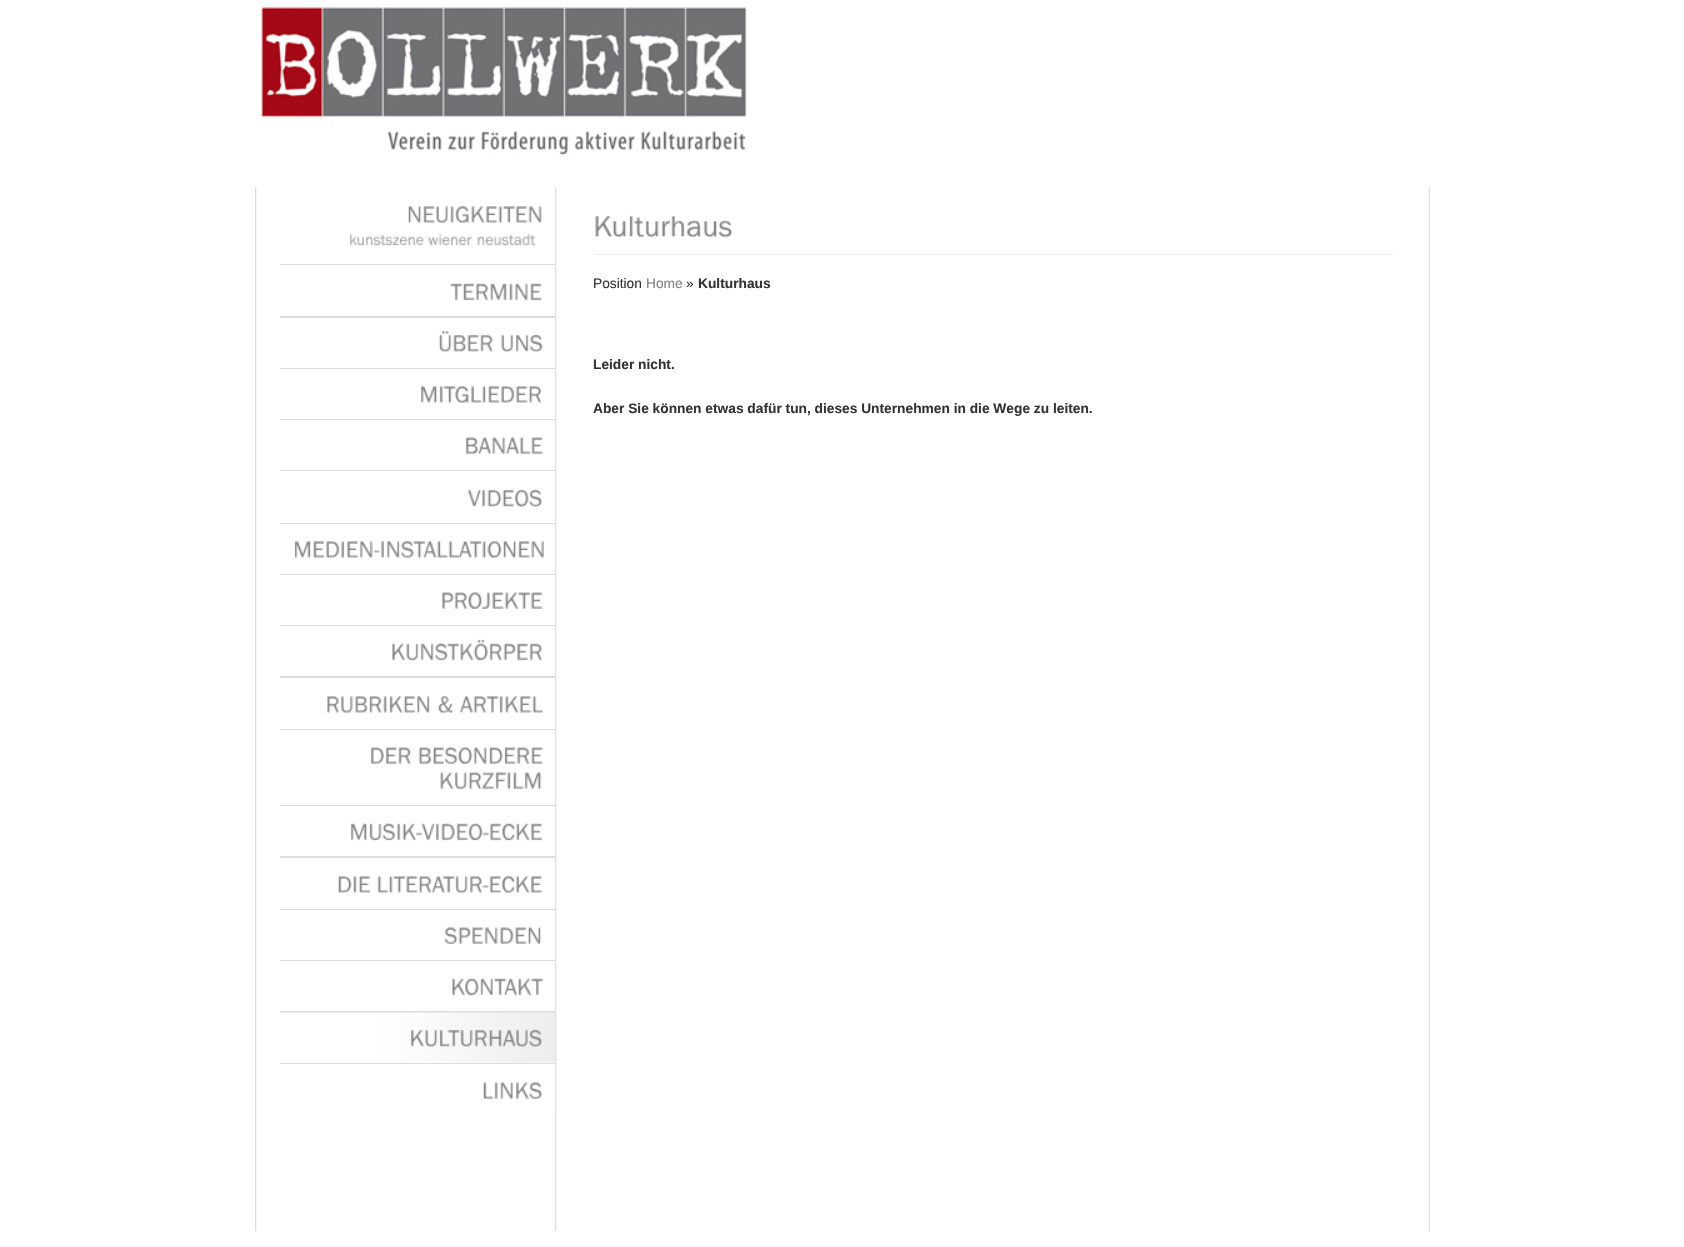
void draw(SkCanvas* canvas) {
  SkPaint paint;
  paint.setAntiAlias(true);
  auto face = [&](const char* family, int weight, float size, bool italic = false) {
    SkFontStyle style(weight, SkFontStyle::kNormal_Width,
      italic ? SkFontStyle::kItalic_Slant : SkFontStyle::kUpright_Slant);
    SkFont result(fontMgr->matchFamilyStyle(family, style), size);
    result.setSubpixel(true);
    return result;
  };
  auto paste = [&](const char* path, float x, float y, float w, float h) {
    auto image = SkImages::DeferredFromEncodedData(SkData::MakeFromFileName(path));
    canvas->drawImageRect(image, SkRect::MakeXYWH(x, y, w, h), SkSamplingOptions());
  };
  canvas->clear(0xffffffff);
  paste("img/1.png", 261, 7, 486, 149);
  paste("img/2.png", 255, 187, 1175, 1044);
  paint.setColor(0xffdddddd);
  canvas->drawRect(SkRect::MakeXYWH(280, 264, 275, 800), paint);
  paint.setColor(0xffffffff);
  canvas->drawRect(SkRect::MakeXYWH(554, 189, 1, 75), paint);
  paste("img/3.png", 408, 206, 134, 17);
  paste("img/4.png", 349, 233, 75, 13);
  paste("img/5.png", 427, 233, 46, 13);
  paste("img/6.png", 477, 233, 59, 13);
  canvas->drawRect(SkRect::MakeXYWH(280, 265, 275, 51), paint);
  paste("img/7.png", 450, 283, 92, 18);
  canvas->drawRect(SkRect::MakeXYWH(280, 318, 275, 50), paint);
  paste("img/8.png", 438, 331, 55, 21);
  paste("img/9.png", 501, 334, 42, 18);
  canvas->drawRect(SkRect::MakeXYWH(280, 369, 275, 50), paint);
  paste("img/10.png", 421, 386, 121, 17);
  canvas->drawRect(SkRect::MakeXYWH(280, 420, 275, 50), paint);
  paste("img/11.png", 466, 437, 77, 17);
  canvas->drawRect(SkRect::MakeXYWH(280, 471, 275, 52), paint);
  paste("img/12.png", 467, 489, 75, 18);
  canvas->drawRect(SkRect::MakeXYWH(280, 524, 275, 50), paint);
  paste("img/13.png", 294, 541, 250, 17);
  canvas->drawRect(SkRect::MakeXYWH(280, 575, 275, 50), paint);
  paste("img/14.png", 442, 592, 101, 17);
  canvas->drawRect(SkRect::MakeXYWH(280, 626, 275, 50), paint);
  paste("img/15.png", 392, 639, 151, 22);
  canvas->drawRect(SkRect::MakeXYWH(280, 678, 275, 51), paint);
  paste("img/16.png", 327, 696, 103, 17);
  paste("img/17.png", 438, 696, 15, 17);
  paste("img/18.png", 459, 696, 84, 17);
  canvas->drawRect(SkRect::MakeXYWH(280, 730, 275, 75), paint);
  paste("img/19.png", 371, 747, 40, 17);
  paste("img/20.png", 418, 747, 125, 17);
  paste("img/21.png", 440, 772, 102, 17);
  canvas->drawRect(SkRect::MakeXYWH(280, 806, 275, 50), paint);
  paste("img/22.png", 351, 823, 192, 18);
  canvas->drawRect(SkRect::MakeXYWH(280, 858, 275, 51), paint);
  paste("img/23.png", 338, 876, 33, 17);
  paste("img/24.png", 377, 876, 166, 17);
  canvas->drawRect(SkRect::MakeXYWH(280, 910, 275, 50), paint);
  paste("img/25.png", 443, 927, 99, 17);
  canvas->drawRect(SkRect::MakeXYWH(280, 961, 275, 50), paint);
  paste("img/26.png", 452, 978, 92, 18);
  canvas->drawRect(SkRect::MakeXYWH(280, 1013, 275, 50), paint);
  paste("img/27.png", 281, 1012, 274, 51);
  paste("img/28.png", 411, 1029, 131, 18);
  canvas->drawRect(SkRect::MakeXYWH(554, 1064, 1, 51), paint);
  paste("img/29.png", 483, 1082, 59, 17);
  paint.setColor(0xffefefef);
  canvas->drawRect(SkRect::MakeXYWH(594, 254, 800, 1), paint);
  paste("img/30.png", 595, 215, 138, 23);
  auto f0 = face("Liberation Sans", 400, 13.75f);
  paint.setColor(0xff333333);
  canvas->drawString("Position", 593, 288, f0, paint);
  paint.setColor(0xff828282);
  canvas->drawString("Home", 646, 288, f0, paint);
  paint.setColor(0xff333333);
  canvas->drawString("»", 686, 288, f0, paint);
  auto f1 = face("Liberation Sans", 700, 13.75f);
  {
    const struct { const char* s; float x, y; } items[] = {
      {"Kulturhaus", 698, 288},
      {"Leider nicht.", 593, 369},
      {"Aber Sie können etwas dafür tun, dieses Unternehmen in die Wege zu leiten.", 593, 413},
    };
    for (auto [s, x, y] : items) {
      canvas->drawString(s, x, y, f1, paint);
    }
  }
}
